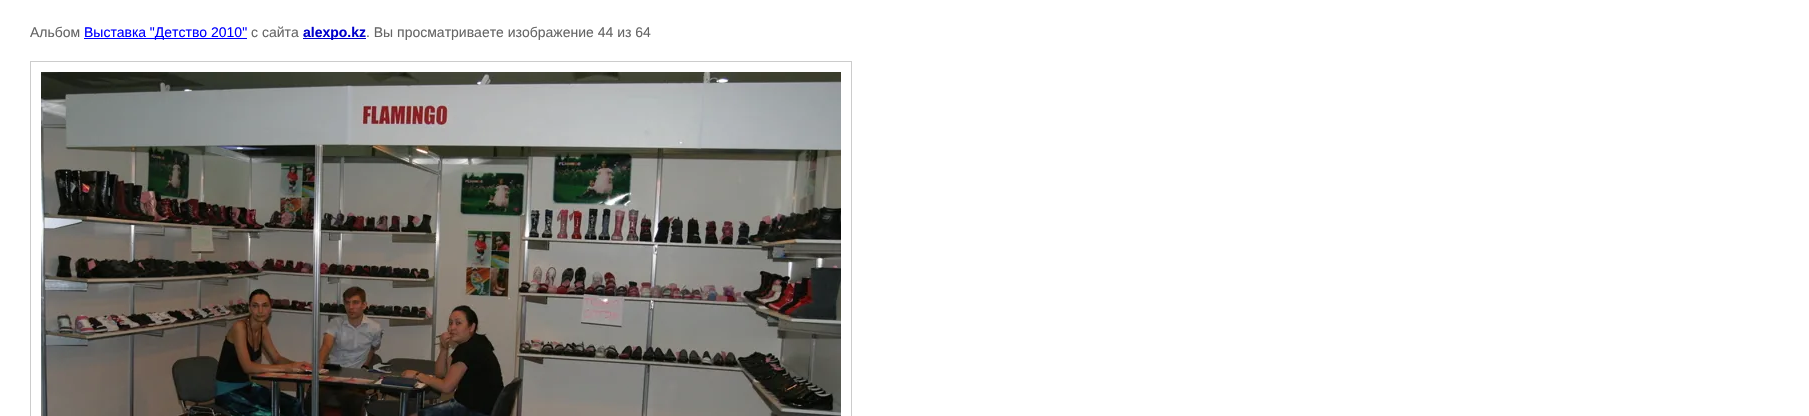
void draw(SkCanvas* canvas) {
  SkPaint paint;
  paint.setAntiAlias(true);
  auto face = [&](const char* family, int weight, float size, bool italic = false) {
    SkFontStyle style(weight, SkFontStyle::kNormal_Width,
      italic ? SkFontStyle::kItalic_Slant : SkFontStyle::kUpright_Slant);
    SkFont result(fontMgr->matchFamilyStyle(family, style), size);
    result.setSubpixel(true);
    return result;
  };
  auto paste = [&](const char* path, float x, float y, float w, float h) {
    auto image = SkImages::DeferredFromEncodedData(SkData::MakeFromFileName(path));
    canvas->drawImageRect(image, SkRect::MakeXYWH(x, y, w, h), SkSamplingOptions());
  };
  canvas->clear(0xffffffff);
  paint.setColor(0xff0000ff);
  canvas->drawRect(SkRect::MakeXYWH(84, 38, 163, 1), paint);
  paint.setColor(0xff0000cc);
  canvas->drawRect(SkRect::MakeXYWH(303, 38, 63, 1), paint);
  paint.setStroke(true);
  paint.setStrokeWidth(1);
  paint.setColor(0xffcccccc);
  canvas->drawRect(SkRect::MakeXYWH(30.5f, 61.5f, 821, 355), paint);
  paste("img/1.png", 41, 72, 800, 344);
  auto f0 = face("Liberation Sans", 400, 14);
  paint.setStroke(false);
  paint.setColor(0xff666666);
  canvas->drawString("Альбом", 30, 37, f0, paint);
  paint.setColor(0xff0000ff);
  canvas->drawString("Выставка \"Детство 2010\"", 84, 37, f0, paint);
  paint.setColor(0xff666666);
  canvas->drawString("с сайта", 251, 37, f0, paint);
  auto f1 = face("Liberation Sans", 700, 14);
  paint.setColor(0xff0000cc);
  canvas->drawString("alexpo.kz", 303, 37, f1, paint);
  paint.setColor(0xff666666);
  canvas->drawString(". Вы просматриваете изображение 44 из 64", 366, 37, f0, paint);
}
